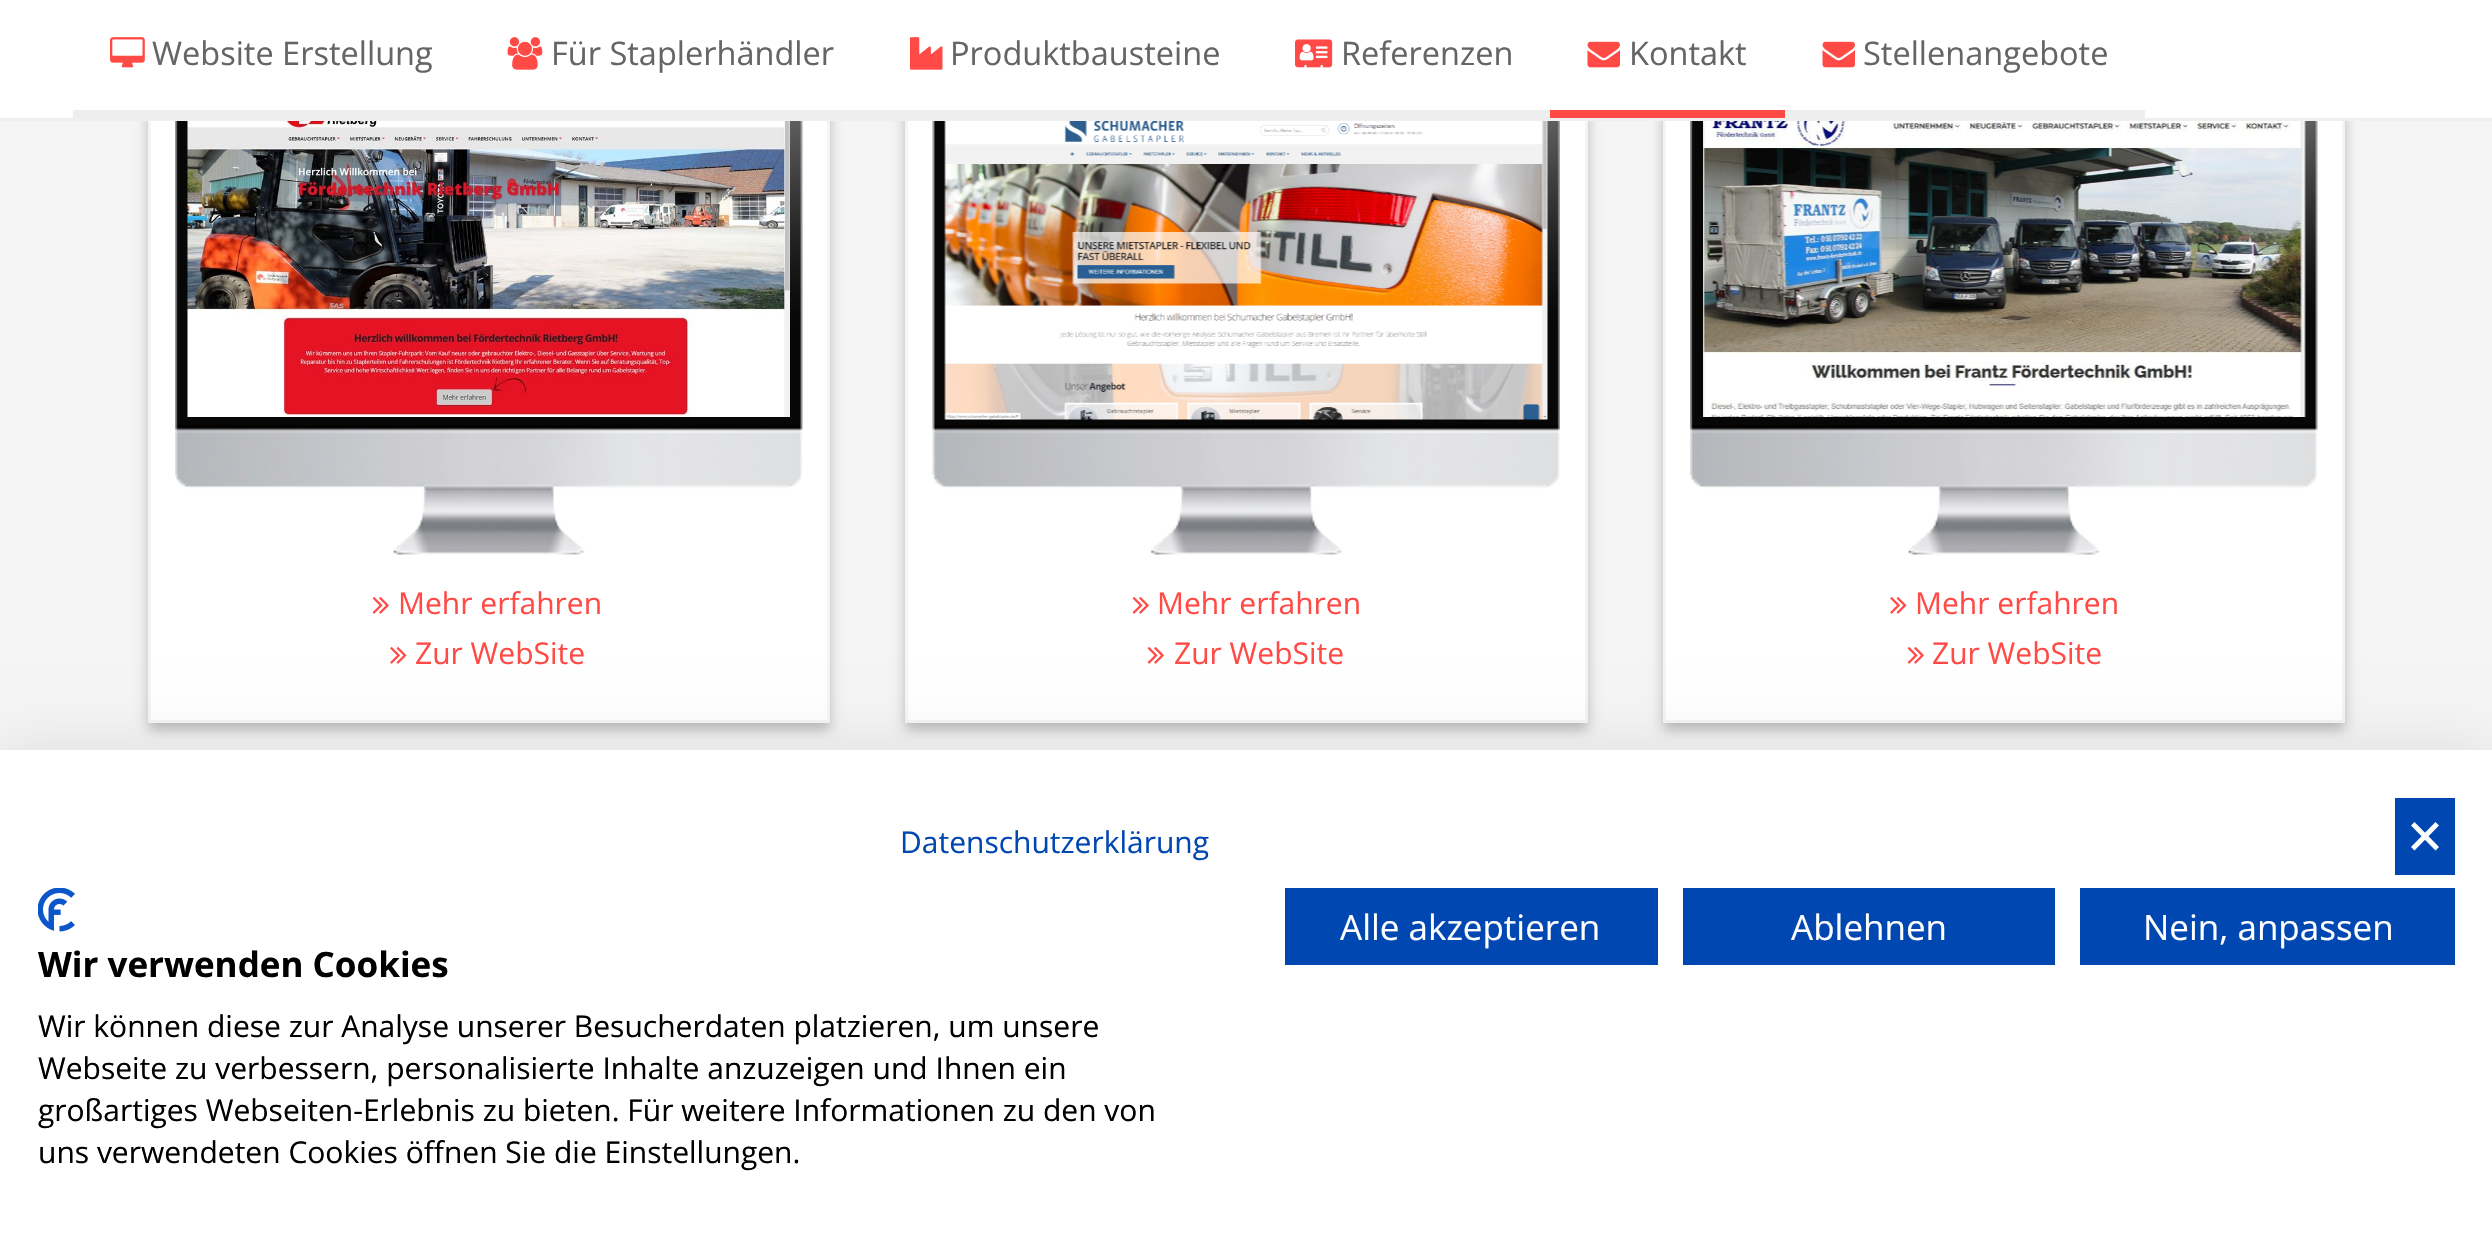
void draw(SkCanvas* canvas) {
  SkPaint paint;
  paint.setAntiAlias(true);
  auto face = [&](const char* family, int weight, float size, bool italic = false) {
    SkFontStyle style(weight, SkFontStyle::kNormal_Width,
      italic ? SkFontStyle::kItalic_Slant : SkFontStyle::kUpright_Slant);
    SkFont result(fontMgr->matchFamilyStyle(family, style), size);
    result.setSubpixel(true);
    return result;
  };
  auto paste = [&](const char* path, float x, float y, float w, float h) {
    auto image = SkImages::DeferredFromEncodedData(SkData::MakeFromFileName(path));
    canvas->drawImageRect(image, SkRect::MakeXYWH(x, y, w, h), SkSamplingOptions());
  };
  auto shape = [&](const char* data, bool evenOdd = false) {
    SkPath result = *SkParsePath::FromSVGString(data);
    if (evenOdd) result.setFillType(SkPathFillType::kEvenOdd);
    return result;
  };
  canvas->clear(0xfff5f5f5);
  paint.setColor(0x3d000000);
  paint.setMaskFilter(SkMaskFilter::MakeBlur(kNormal_SkBlurStyle, 6));
  canvas->drawRect(SkRect::MakeXYWH(148, -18, 682, 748), paint);
  paint.setMaskFilter(nullptr);
  paint.setColor(0xffffffff);
  canvas->drawRect(SkRect::MakeXYWH(151, 121, 676, 599), paint);
  paint.setStroke(true);
  paint.setStrokeWidth(3);
  paint.setColor(0xfff5f5f5);
  canvas->drawRect(SkRect::MakeXYWH(149.5f, -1.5f, 679, 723), paint);
  paint.setStroke(false);
  paint.setColor(0x3d000000);
  paint.setMaskFilter(SkMaskFilter::MakeBlur(kNormal_SkBlurStyle, 6));
  canvas->drawRect(SkRect::MakeXYWH(905, -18, 683, 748), paint);
  paint.setMaskFilter(nullptr);
  paint.setColor(0xffffffff);
  canvas->drawRect(SkRect::MakeXYWH(908, 121, 677, 599), paint);
  paint.setStroke(true);
  paint.setColor(0xfff5f5f5);
  canvas->drawRect(SkRect::MakeXYWH(906.5f, -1.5f, 680, 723), paint);
  paint.setStroke(false);
  paint.setColor(0x3d000000);
  paint.setMaskFilter(SkMaskFilter::MakeBlur(kNormal_SkBlurStyle, 6));
  canvas->drawRect(SkRect::MakeXYWH(1663, -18, 682, 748), paint);
  paint.setMaskFilter(nullptr);
  paint.setColor(0xffffffff);
  canvas->drawRect(SkRect::MakeXYWH(1666, 121, 676, 599), paint);
  paint.setStroke(true);
  paint.setColor(0xfff5f5f5);
  canvas->drawRect(SkRect::MakeXYWH(1664.5f, -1.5f, 679, 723), paint);
  paint.setStroke(false);
  {
    const struct { float x, y, w, h; SkColor color; } items[] = {
      {0, 0, 2492, 118, 0xffffffff},
      {0, 118, 2492, 3, 0xffefefef},
      {73, 110, 1477, 8, 0xffeeeeee},
    };
    for (auto [x, y, w, h, color] : items) {
      paint.setColor(color);
      canvas->drawRect(SkRect::MakeXYWH(x, y, w, h), paint);
    }
  }
  paste("img/1.png", 110, 37, 35, 31);
  paste("img/2.png", 507, 37, 36, 33);
  paste("img/3.png", 910, 37, 33, 33);
  paste("img/4.png", 1295, 39, 38, 29);
  paint.setColor(0xffff4a45);
  canvas->drawRect(SkRect::MakeXYWH(1550, 110, 235, 8), paint);
  paste("img/5.png", 1587, 41, 33, 27);
  paint.setColor(0xffeeeeee);
  canvas->drawRect(SkRect::MakeXYWH(1785, 110, 360, 8), paint);
  paste("img/5.png", 1822, 41, 33, 27);
  paste("img/6.png", 175, 121, 628, 434);
  paste("img/7.png", 187, 121, 603, 296);
  paste("img/8.png", 372, 597, 17, 17);
  paste("img/9.png", 390, 647, 17, 17);
  paste("img/10.png", 932, 121, 628, 434);
  paste("img/11.png", 944, 121, 604, 299);
  paste("img/8.png", 1132, 597, 17, 17);
  paste("img/8.png", 1147, 647, 17, 17);
  paste("img/12.png", 1690, 121, 628, 434);
  paste("img/13.png", 1703, 121, 603, 296);
  paste("img/9.png", 1890, 597, 17, 17);
  paste("img/8.png", 1907, 647, 17, 17);
  paint.setColor(0x1a000000);
  paint.setMaskFilter(SkMaskFilter::MakeBlur(kNormal_SkBlurStyle, 30));
  canvas->drawRect(SkRect::MakeXYWH(0, 750, 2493, 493), paint);
  paint.setMaskFilter(nullptr);
  paint.setColor(0xffffffff);
  canvas->drawRect(SkRect::MakeXYWH(0, 750, 2492, 491), paint);
  paint.setColor(0xff0047b2);
  canvas->drawRect(SkRect::MakeXYWH(2395, 798, 60, 77), paint);
  paint.setColor(0xffffffff);
  canvas->drawPath(shape("M2435.5 822L2439 825.5L2414.5 850.5L2411 847Z"), paint);
  canvas->drawPath(shape("M2411 825.5L2414.5 822L2439 847L2435.5 850.5Z"), paint);
  {
    const struct { float x, y, w, h; SkColor color; } items[] = {
      {1285, 888, 373, 77, 0xff0047b2},
      {1683, 888, 372, 77, 0xff0047b2},
      {2080, 888, 375, 77, 0xff0047b2},
    };
    for (auto [x, y, w, h, color] : items) {
      paint.setColor(color);
      canvas->drawRect(SkRect::MakeXYWH(x, y, w, h), paint);
    }
  }
  paste("img/14.png", 38, 888, 37, 44);
  auto f0 = face("Open Sans", 400, 32.5f);
  paint.setColor(0xff656565);
  {
    const struct { const char* s; float x, y; } items[] = {
      {"Website Erstellung", 152, 65},
      {"Für Staplerhändler", 551, 65},
      {"Produktbausteine", 950, 65},
      {"Referenzen", 1341, 65},
      {"Kontakt", 1629, 65},
      {"Stellenangebote", 1863, 65},
    };
    for (auto [s, x, y] : items) {
      canvas->drawString(s, x, y, f0, paint);
    }
  }
  auto f1 = face("Open Sans", 400, 30);
  paint.setColor(0xffff4a45);
  {
    const struct { const char* s; float x, y; } items[] = {
      {"Mehr erfahren", 398, 614},
      {"Zur WebSite", 415, 664},
      {"Mehr erfahren", 1157, 614},
      {"Zur WebSite", 1174, 664},
      {"Mehr erfahren", 1915, 614},
      {"Zur WebSite", 1932, 664},
    };
    for (auto [s, x, y] : items) {
      canvas->drawString(s, x, y, f1, paint);
    }
  }
  paint.setColor(0xff0047b2);
  canvas->drawString("Datenschutzerklärung", 900, 853, f1, paint);
  auto f2 = face("Open Sans", 400, 35);
  paint.setColor(0xffffffff);
  {
    const struct { const char* s; float x, y; } items[] = {
      {"Alle akzeptieren", 1340, 940},
      {"Ablehnen", 1791, 940},
      {"Nein, anpassen", 2143, 940},
    };
    for (auto [s, x, y] : items) {
      canvas->drawString(s, x, y, f2, paint);
    }
  }
  auto f3 = face("Open Sans", 700, 35);
  paint.setColor(0xff000000);
  canvas->drawString("Wir verwenden Cookies", 38, 977, f3, paint);
  {
    const struct { const char* s; float x, y; } items[] = {
      {"Wir können diese zur Analyse unserer Besucherdaten platzieren, um unsere", 38, 1037},
      {"Webseite zu verbessern, personalisierte Inhalte anzuzeigen und Ihnen ein", 38, 1079},
      {"großartiges Webseiten-Erlebnis zu bieten. Für weitere Informationen zu den von", 38, 1121},
      {"uns verwendeten Cookies öffnen Sie die Einstellungen.", 38, 1163},
    };
    for (auto [s, x, y] : items) {
      canvas->drawString(s, x, y, f1, paint);
    }
  }
}
